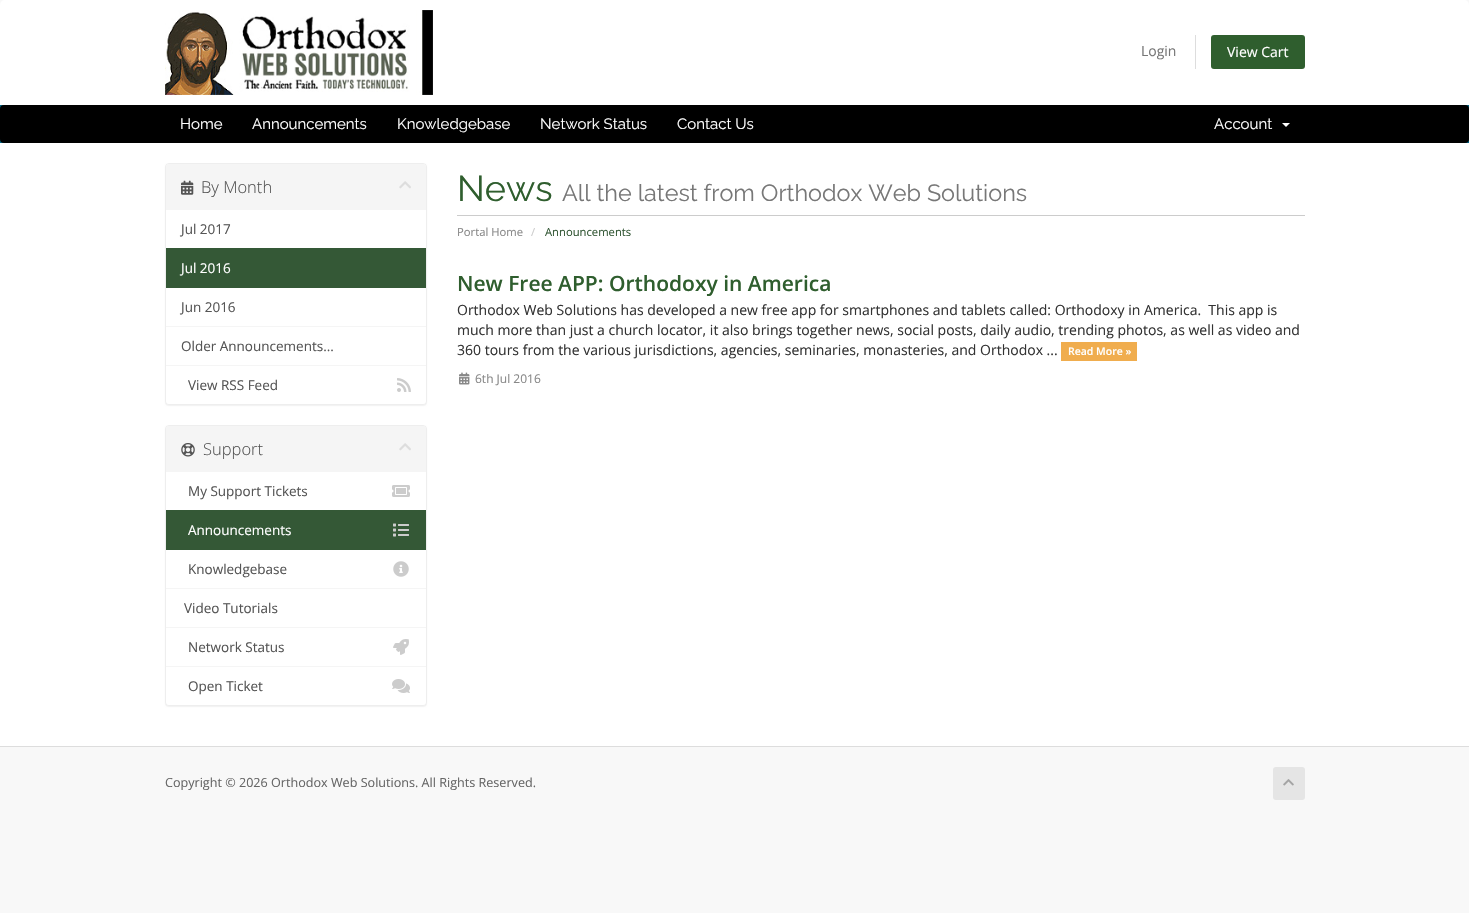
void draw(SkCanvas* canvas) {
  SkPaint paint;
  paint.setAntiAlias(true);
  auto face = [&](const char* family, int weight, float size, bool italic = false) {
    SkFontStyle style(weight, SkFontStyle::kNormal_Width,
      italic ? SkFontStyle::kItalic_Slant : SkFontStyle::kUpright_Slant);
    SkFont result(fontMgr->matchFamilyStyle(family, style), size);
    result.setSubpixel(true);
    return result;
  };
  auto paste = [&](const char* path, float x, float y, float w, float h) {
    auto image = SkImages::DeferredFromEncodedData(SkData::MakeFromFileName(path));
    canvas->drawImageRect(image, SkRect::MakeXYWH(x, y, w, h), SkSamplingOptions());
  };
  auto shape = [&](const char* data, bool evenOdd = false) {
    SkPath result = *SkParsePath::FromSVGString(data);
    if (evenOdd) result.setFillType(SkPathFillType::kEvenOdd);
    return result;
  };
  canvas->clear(0xfff8f8f8);
  paint.setColor(0xffffffff);
  canvas->drawPath(shape("M5 0H1464C1467 0 1469 2 1469 5V105H0V5C0 2 2 0 5 0Z"), paint);
  paste("img/1.png", 165, 10, 268, 85);
  paint.setColor(0xffdddddd);
  canvas->drawRect(SkRect::MakeXYWH(1195, 35, 1, 34), paint);
  paint.setColor(0xff2f5e2e);
  canvas->drawRoundRect(SkRect::MakeXYWH(1211, 35, 94, 34), 3, 3, paint);
  paint.setColor(0xff006687);
  canvas->drawRect(SkRect::MakeXYWH(0, 105, 1469, 38), paint);
  paint.setColor(0xff000000);
  canvas->drawRoundRect(SkRect::MakeXYWH(0, 105, 1469, 38), 4, 4, paint);
  paint.setColor(0xffffffff);
  canvas->drawPath(shape("M1282 123H1290L1286 127Z"), paint);
  canvas->drawRect(SkRect::MakeXYWH(0, 143, 1469, 603), paint);
  paint.setColor(0x0d000000);
  paint.setMaskFilter(SkMaskFilter::MakeBlur(kNormal_SkBlurStyle, 0.5f));
  canvas->drawRoundRect(SkRect::MakeXYWH(165, 164, 262, 242), 4, 4, paint);
  paint.setMaskFilter(nullptr);
  paint.setColor(0xffffffff);
  canvas->drawRoundRect(SkRect::MakeXYWH(165.5f, 163.5f, 261, 241), 3.5f, 3.5f, paint);
  paint.setStroke(true);
  paint.setStrokeWidth(1);
  paint.setColor(0xffeeeeee);
  canvas->drawRoundRect(SkRect::MakeXYWH(165.5f, 163.5f, 261, 241), 3.5f, 3.5f, paint);
  paint.setStroke(false);
  paint.setColor(0xfff5f5f5);
  canvas->drawPath(shape("M169 164H423C424.5 164 426 165.5 426 167V210H166V167C166 165.5 167.5 164 169 164Z"), paint);
  paste("img/2.png", 181, 180, 13, 15);
  paste("img/3.png", 399, 181, 12, 8);
  paint.setColor(0xff345836);
  canvas->drawRect(SkRect::MakeXYWH(166, 248, 260, 40), paint);
  paint.setColor(0xfff5f5f5);
  canvas->drawRect(SkRect::MakeXYWH(166, 326, 260, 1), paint);
  paint.setColor(0xffffffff);
  canvas->drawPath(shape("M166 365H426V401C426 402.5 424.5 404 423 404H169C167.5 404 166 402.5 166 401Z"), paint);
  paint.setColor(0xfff5f5f5);
  canvas->drawRect(SkRect::MakeXYWH(166, 365, 260, 1), paint);
  paste("img/4.png", 397, 378, 14, 14);
  paint.setColor(0xffcccccc);
  canvas->drawRect(SkRect::MakeXYWH(457, 215, 848, 1), paint);
  paint.setColor(0xfff0ad4e);
  canvas->drawRect(SkRect::MakeXYWH(1061, 342, 76, 19), paint);
  paste("img/5.png", 459, 372, 11, 13);
  paint.setColor(0x0d000000);
  paint.setMaskFilter(SkMaskFilter::MakeBlur(kNormal_SkBlurStyle, 0.5f));
  canvas->drawRoundRect(SkRect::MakeXYWH(165, 426, 262, 281), 4, 4, paint);
  paint.setMaskFilter(nullptr);
  paint.setColor(0xffffffff);
  canvas->drawRoundRect(SkRect::MakeXYWH(165.5f, 425.5f, 261, 280), 3.5f, 3.5f, paint);
  paint.setStroke(true);
  paint.setColor(0xffeeeeee);
  canvas->drawRoundRect(SkRect::MakeXYWH(165.5f, 425.5f, 261, 280), 3.5f, 3.5f, paint);
  paint.setStroke(false);
  paint.setColor(0xfff5f5f5);
  canvas->drawPath(shape("M169 426H423C424.5 426 426 427.5 426 429V472H166V429C166 427.5 167.5 426 169 426Z"), paint);
  paste("img/6.png", 181, 443, 14, 14);
  paste("img/3.png", 399, 443, 12, 8);
  paste("img/7.png", 392, 485, 18, 12);
  paint.setColor(0xff345836);
  canvas->drawRect(SkRect::MakeXYWH(166, 510, 260, 40), paint);
  paste("img/8.png", 393, 523, 16, 14);
  paint.setColor(0xfff5f5f5);
  canvas->drawRect(SkRect::MakeXYWH(166, 588, 260, 1), paint);
  paste("img/9.png", 393, 561, 16, 16);
  canvas->drawRect(SkRect::MakeXYWH(166, 627, 260, 1), paint);
  paste("img/10.png", 393, 639, 16, 16);
  paint.setColor(0xffffffff);
  canvas->drawPath(shape("M166 666H426V702C426 703.5 424.5 705 423 705H169C167.5 705 166 703.5 166 702Z"), paint);
  paint.setColor(0xfff5f5f5);
  canvas->drawRect(SkRect::MakeXYWH(166, 666, 260, 1), paint);
  paste("img/11.png", 392, 679, 18, 14);
  paint.setColor(0xffdddddd);
  canvas->drawRect(SkRect::MakeXYWH(0, 746, 1469, 1), paint);
  paint.setColor(0xffe5e5e5);
  canvas->drawRoundRect(SkRect::MakeXYWH(1273, 767, 32, 33), 3, 3, paint);
  paste("img/12.png", 1283, 779, 11, 7);
  auto f0 = face("Open Sans", 400, 14);
  paint.setColor(0xff777777);
  canvas->drawString("Login", 1141, 56, f0, paint);
  paint.setColor(0xffffffff);
  canvas->drawString("View Cart", 1227, 57, f0, paint);
  auto f1 = face("Raleway", 400, 15);
  {
    const struct { const char* s; float x, y; } items[] = {
      {"Home", 180, 129},
      {"Announcements", 252, 129},
      {"Knowledgebase", 397, 129},
      {"Network Status", 540, 129},
      {"Contact Us", 677, 129},
      {"Account", 1214, 129},
    };
    for (auto [s, x, y] : items) {
      canvas->drawString(s, x, y, f1, paint);
    }
  }
  auto f2 = face("Open Sans", 300, 16.5f);
  paint.setColor(0xff555555);
  canvas->drawString("By Month", 201, 193, f2, paint);
  auto f3 = face("Open Sans", 400, 13.5f);
  canvas->drawString("Jul 2017", 181, 234, f3, paint);
  paint.setColor(0xffffffff);
  canvas->drawString("Jul 2016", 181, 273, f3, paint);
  paint.setColor(0xff555555);
  {
    const struct { const char* s; float x, y; } items[] = {
      {"Jun 2016", 181, 312},
      {"Older Announcements...", 181, 351},
      {"View RSS Feed", 188, 390},
    };
    for (auto [s, x, y] : items) {
      canvas->drawString(s, x, y, f3, paint);
    }
  }
  auto f4 = face("Raleway", 400, 36);
  paint.setColor(0xff2f5e2e);
  canvas->drawString("News", 457, 201, f4, paint);
  auto f5 = face("Raleway", 400, 23.4f);
  paint.setColor(0xff777777);
  canvas->drawString("All the latest from Orthodox Web Solutions", 562, 201, f5, paint);
  auto f6 = face("Open Sans", 400, 11.25f);
  paint.setColor(0xff888888);
  canvas->drawString("Portal Home", 457, 236, f6, paint);
  paint.setColor(0xffcccccc);
  canvas->drawString("/", 531, 236, f6, paint);
  paint.setColor(0xff345836);
  canvas->drawString("Announcements", 545, 236, f6, paint);
  auto f7 = face("Open Sans", 600, 21);
  paint.setColor(0xff2f5e2e);
  canvas->drawString("New Free APP: Orthodoxy in America", 457, 291, f7, paint);
  paint.setColor(0xff333333);
  {
    const struct { const char* s; float x, y; } items[] = {
      {"Orthodox Web Solutions has developed a new free app for smartphones and tablets called: Orthodoxy in America.  This app is", 457, 315},
      {"much more than just a church locator, it also brings together news, social posts, daily audio, trending photos, as well as video and", 457, 335},
      {"360 tours from the various jurisdictions, agencies, seminaries, monasteries, and Orthodox ...", 457, 355},
    };
    for (auto [s, x, y] : items) {
      canvas->drawString(s, x, y, f0, paint);
    }
  }
  auto f8 = face("Open Sans", 600, 10.5f);
  paint.setColor(0xffffffff);
  canvas->drawString("Read More »", 1068, 355, f8, paint);
  auto f9 = face("Open Sans", 400, 12);
  paint.setColor(0xff888888);
  canvas->drawString("6th Jul 2016", 475, 383, f9, paint);
  paint.setColor(0xff555555);
  canvas->drawString("Support", 203, 455, f2, paint);
  canvas->drawString("My Support Tickets", 188, 496, f3, paint);
  paint.setColor(0xffffffff);
  canvas->drawString("Announcements", 188, 535, f3, paint);
  paint.setColor(0xff555555);
  {
    const struct { const char* s; float x, y; } items[] = {
      {"Knowledgebase", 188, 574},
      {"Video Tutorials", 184, 613},
      {"Network Status", 188, 652},
      {"Open Ticket", 188, 691},
    };
    for (auto [s, x, y] : items) {
      canvas->drawString(s, x, y, f3, paint);
    }
  }
  auto f10 = face("Open Sans", 400, 12.6f);
  paint.setColor(0xff666666);
  canvas->drawString("Copyright © 2026 Orthodox Web Solutions. All Rights Reserved.", 165, 787, f10, paint);
}
